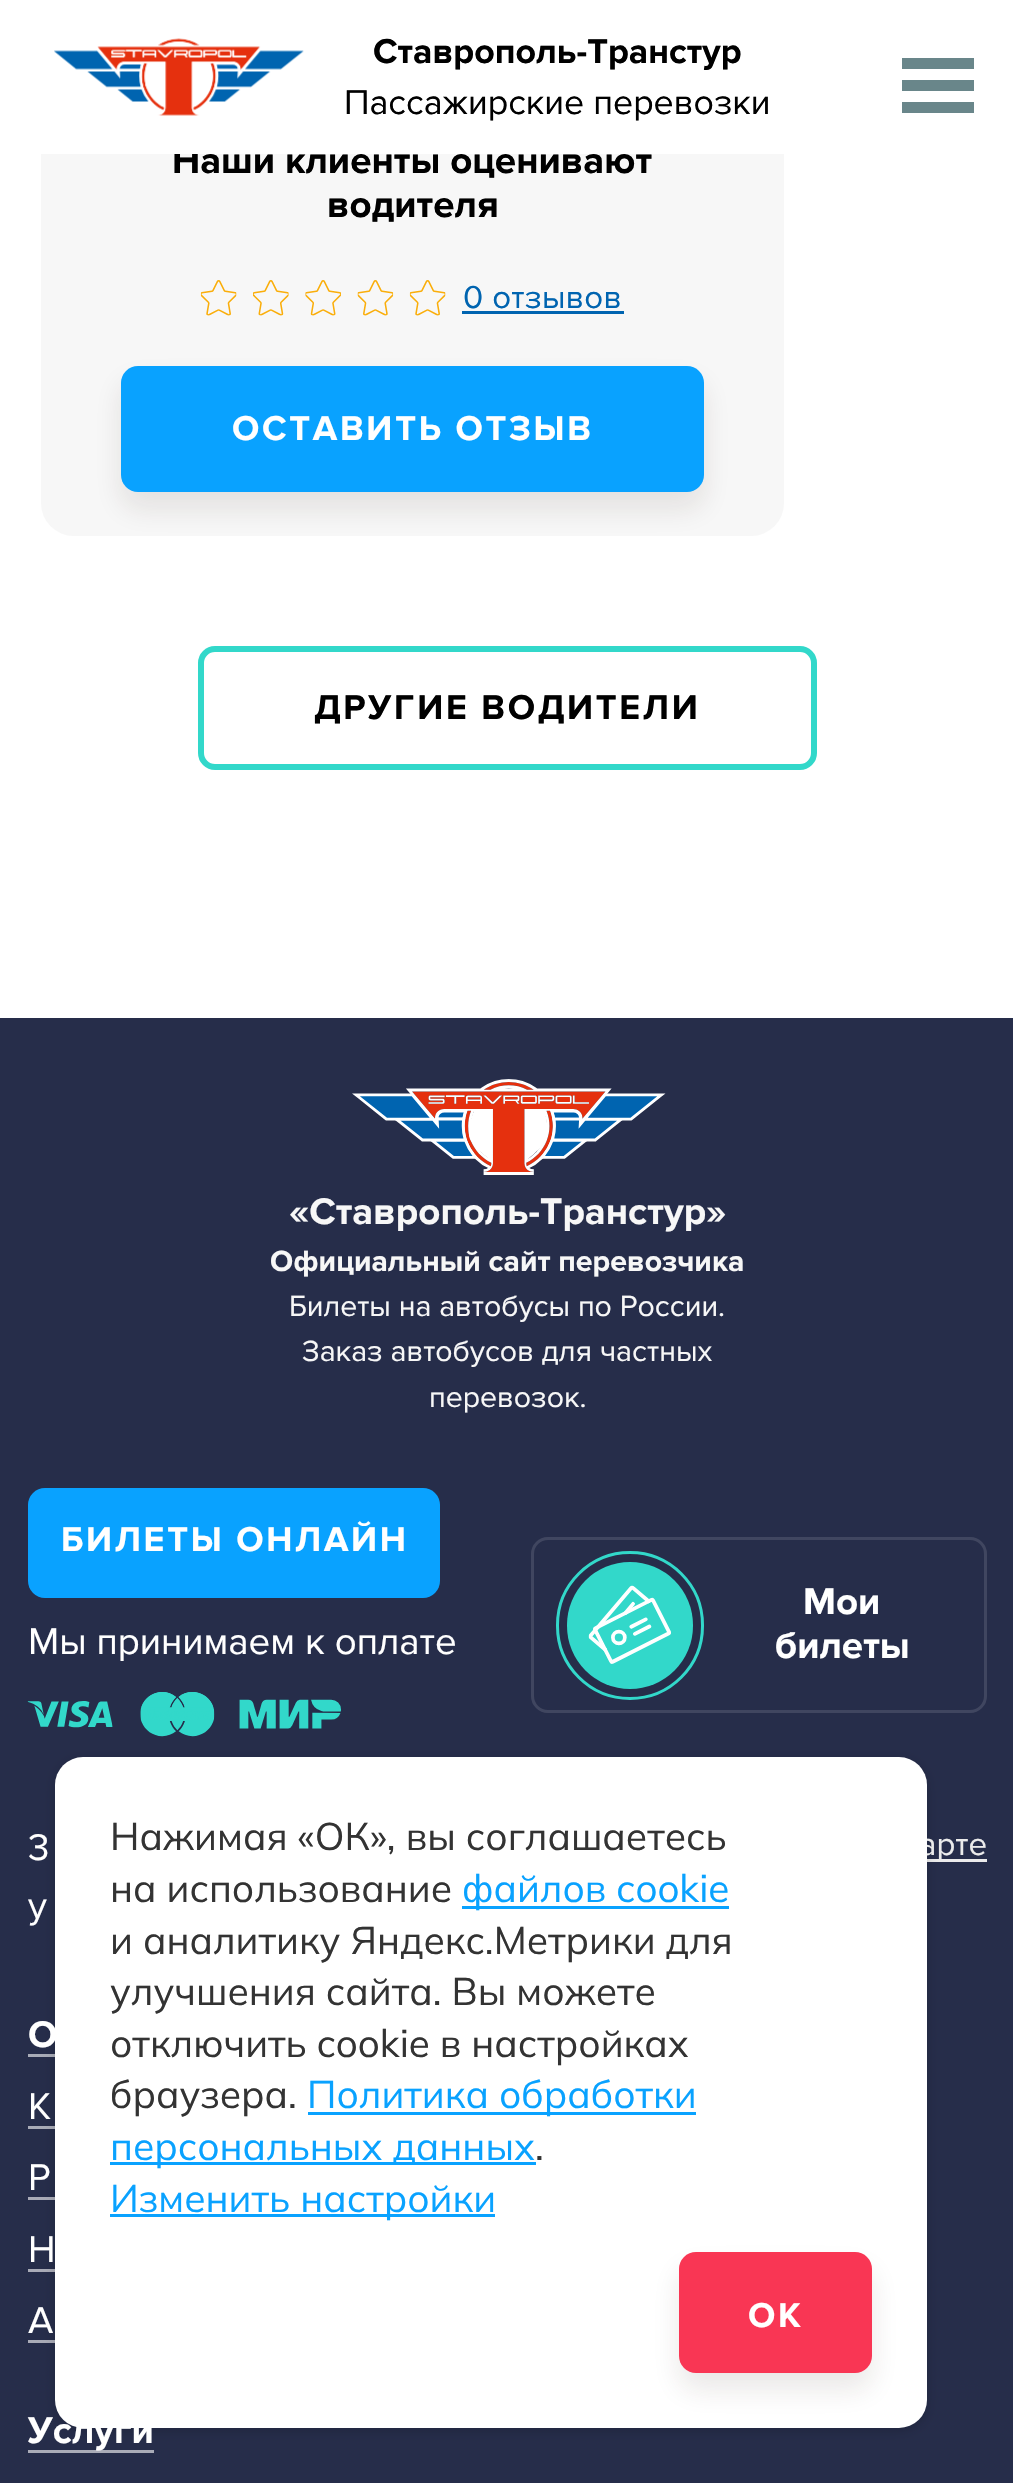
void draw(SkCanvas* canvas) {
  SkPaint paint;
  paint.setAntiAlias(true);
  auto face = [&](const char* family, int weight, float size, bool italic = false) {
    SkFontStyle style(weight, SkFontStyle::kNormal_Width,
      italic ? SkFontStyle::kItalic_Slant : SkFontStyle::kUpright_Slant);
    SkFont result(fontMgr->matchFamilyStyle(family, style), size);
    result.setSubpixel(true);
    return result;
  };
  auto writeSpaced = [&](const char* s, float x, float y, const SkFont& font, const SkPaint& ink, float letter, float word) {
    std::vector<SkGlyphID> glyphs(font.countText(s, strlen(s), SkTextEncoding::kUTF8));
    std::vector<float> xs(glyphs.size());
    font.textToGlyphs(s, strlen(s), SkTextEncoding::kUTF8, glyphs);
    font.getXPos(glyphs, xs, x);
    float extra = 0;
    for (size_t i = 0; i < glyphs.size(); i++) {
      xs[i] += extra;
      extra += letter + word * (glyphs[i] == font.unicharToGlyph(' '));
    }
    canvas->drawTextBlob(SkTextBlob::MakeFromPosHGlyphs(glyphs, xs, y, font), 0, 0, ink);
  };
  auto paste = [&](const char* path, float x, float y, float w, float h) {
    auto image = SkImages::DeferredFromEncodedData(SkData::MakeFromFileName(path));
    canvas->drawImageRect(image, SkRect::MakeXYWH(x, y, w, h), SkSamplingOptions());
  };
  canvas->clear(0xffffffff);
  {
    const struct { float x, y, w, h; SkColor color; } items[] = {
      {902, 80, 72, 11, 0xff69868a},
      {902, 58, 72, 11, 0xff69868a},
      {902, 102, 72, 11, 0xff69868a},
    };
    for (auto [x, y, w, h, color] : items) {
      paint.setColor(color);
      canvas->drawRect(SkRect::MakeXYWH(x, y, w, h), paint);
    }
  }
  paint.setColor(0xfff7f7f7);
  canvas->drawRoundRect(SkRect::MakeXYWH(41, 96, 743, 440), 33, 33, paint);
  paste("img/2.png", 200, 280, 37, 36);
  paste("img/3.png", 253, 280, 36, 36);
  paste("img/4.png", 305, 280, 36, 36);
  paste("img/5.png", 357, 280, 37, 36);
  paste("img/2.png", 409, 280, 37, 36);
  paint.setColor(0xff0064b0);
  canvas->drawRect(SkRect::MakeXYWH(462, 311, 162, 3), paint);
  paint.setColor(0x1a2d1d11);
  paint.setMaskFilter(SkMaskFilter::MakeBlur(kNormal_SkBlurStyle, 14));
  canvas->drawRoundRect(SkRect::MakeXYWH(121, 382, 583, 127), 17, 17, paint);
  paint.setMaskFilter(nullptr);
  paint.setColor(0xff09a2ff);
  canvas->drawRoundRect(SkRect::MakeXYWH(121, 366, 583, 126), 17, 17, paint);
  paint.setStroke(true);
  paint.setStrokeWidth(6);
  paint.setColor(0xff32d8ca);
  canvas->drawRoundRect(SkRect::MakeXYWH(201, 649, 613, 118), 14, 14, paint);
  paint.setStroke(false);
  paint.setColor(0xff262d4a);
  canvas->drawRect(SkRect::MakeXYWH(0, 1018, 1013, 1465), paint);
  paste("img/6.png", 352, 1079, 314, 96);
  paint.setColor(0xff09a2ff);
  canvas->drawRoundRect(SkRect::MakeXYWH(28, 1488, 412, 110), 17, 17, paint);
  paste("img/7.png", 27, 1701, 86, 27);
  paste("img/8.png", 140, 1692, 75, 45);
  paste("img/9.png", 239, 1699, 102, 30);
  paint.setStroke(true);
  paint.setStrokeWidth(3);
  paint.setColor(0xff404660);
  canvas->drawRoundRect(SkRect::MakeXYWH(532.5f, 1538.5f, 453, 173), 15.5f, 15.5f, paint);
  paint.setStroke(false);
  paint.setColor(0xff32d8ca);
  canvas->drawRoundRect(SkRect::MakeXYWH(567, 1562, 126, 127), 63, 63, paint);
  paste("img/10.png", 588, 1585, 83, 79);
  paint.setStroke(true);
  canvas->drawRoundRect(SkRect::MakeXYWH(557.5f, 1552.5f, 145, 146), 72.5f, 72.5f, paint);
  paint.setStroke(false);
  {
    const struct { float x, y, w, h; SkColor color; } items[] = {
      {927, 1859, 60, 3, 0xffebebeb},
      {28, 2054, 27, 3, 0xffa8abb7},
      {28, 2126, 27, 3, 0xffa8abb7},
      {28, 2197, 27, 3, 0x99ffffff},
      {28, 2269, 27, 3, 0x99ffffff},
      {28, 2340, 27, 3, 0x99ffffff},
    };
    for (auto [x, y, w, h, color] : items) {
      paint.setColor(color);
      canvas->drawRect(SkRect::MakeXYWH(x, y, w, h), paint);
    }
  }
  paint.setColor(0x29000000);
  paint.setMaskFilter(SkMaskFilter::MakeBlur(kNormal_SkBlurStyle, 5.5f));
  canvas->drawRoundRect(SkRect::MakeXYWH(55, 1760, 872, 671), 28, 28, paint);
  paint.setMaskFilter(nullptr);
  auto f0 = face("Proxima Nova", 700, 35.75f);
  paint.setColor(0xff000000);
  canvas->drawString("Ставрополь-Транстур", 373, 63, f0, paint);
  auto f1 = face("Proxima Nova", 700, 38.5f);
  canvas->drawString("Наши клиенты оценивают", 172, 173, f1, paint);
  paint.setColor(0xffffffff);
  canvas->drawRect(SkRect::MakeXYWH(41, 96, 743, 58), paint);
  auto f2 = face("Proxima Nova", 400, 35.75f);
  paint.setColor(0xff000000);
  canvas->drawString("Пассажирские перевозки", 344, 114, f2, paint);
  paste("img/1.png", 54, 38, 250, 78);
  canvas->drawString("водителя", 327, 217, f1, paint);
  auto f3 = face("Proxima Nova", 400, 33);
  paint.setColor(0xff0064b0);
  writeSpaced("0 отзывов", 463, 308, f3, paint, 0.25f, 0);
  paint.setColor(0xffffffff);
  writeSpaced("ОСТАВИТЬ ОТЗЫВ", 232, 440, f0, paint, 2.7f, 0);
  paint.setColor(0xff000000);
  writeSpaced("ДРУГИЕ ВОДИТЕЛИ", 314, 719, f0, paint, 2.7f, 0);
  paint.setColor(0xfff7f7f7);
  canvas->drawString("«Ставрополь-Транстур»", 289, 1224, f1, paint);
  auto f4 = face("Proxima Nova", 700, 30.25f);
  canvas->drawString("Официальный сайт перевозчика", 270, 1271, f4, paint);
  auto f5 = face("Proxima Nova", 400, 30.25f);
  {
    const struct { const char* s; float x, y; } items[] = {
      {"Билеты на автобусы по России.", 289, 1316},
      {"Заказ автобусов для частных", 302, 1361},
      {"перевозок.", 429, 1407},
    };
    for (auto [s, x, y] : items) {
      canvas->drawString(s, x, y, f5, paint);
    }
  }
  paint.setColor(0xffffffff);
  writeSpaced("БИЛЕТЫ ОНЛАЙН", 61, 1551, f0, paint, 2.7f, 0);
  auto f6 = face("Proxima Nova", 400, 38.5f);
  canvas->drawString("Мы принимаем к оплате", 28, 1654, f6, paint);
  canvas->drawString("Мои", 803, 1614, f1, paint);
  canvas->drawString("билеты", 775, 1658, f1, paint);
  canvas->drawString("3", 28, 1860, f6, paint);
  paint.setColor(0xffebebeb);
  canvas->drawString("арте", 919, 1855, f3, paint);
  paint.setColor(0xffffffff);
  canvas->drawString("у", 28, 1918, f6, paint);
  canvas->drawString("О", 28, 2047, f1, paint);
  {
    const struct { const char* s; float x, y; } items[] = {
      {"К", 28, 2119},
      {"Р", 28, 2190},
      {"Н", 28, 2262},
      {"А", 28, 2333},
    };
    for (auto [s, x, y] : items) {
      canvas->drawString(s, x, y, f6, paint);
    }
  }
  canvas->drawString("Услуги", 28, 2443, f1, paint);
  paint.setColor(0x99ffffff);
  canvas->drawRect(SkRect::MakeXYWH(28, 2450, 126, 3), paint);
  paint.setColor(0xffffffff);
  canvas->drawRoundRect(SkRect::MakeXYWH(55, 1757, 872, 671), 28, 28, paint);
  auto f7 = face("Mulish", 400, 38.5f);
  paint.setColor(0xff333333);
  canvas->drawString("Нажимая «ОК», вы соглашаетесь", 110, 1850, f7, paint);
  canvas->drawString("на использование", 110, 1902, f7, paint);
  paint.setColor(0xff09a2ff);
  canvas->drawRect(SkRect::MakeXYWH(462, 1906, 267, 3), paint);
  canvas->drawString("файлов cookie", 462, 1902, f7, paint);
  paint.setColor(0xff333333);
  {
    const struct { const char* s; float x, y; } items[] = {
      {"и аналитику Яндекс.Метрики для", 110, 1954},
      {"улучшения сайта. Вы можете", 110, 2005},
      {"отключить cookie в настройках", 110, 2057},
      {"браузера.", 110, 2108},
    };
    for (auto [s, x, y] : items) {
      canvas->drawString(s, x, y, f7, paint);
    }
  }
  paint.setColor(0xff09a2ff);
  canvas->drawRect(SkRect::MakeXYWH(308, 2112, 388, 3), paint);
  canvas->drawString("Политика обработки", 307, 2108, f7, paint);
  canvas->drawRect(SkRect::MakeXYWH(110, 2162, 426, 3), paint);
  canvas->drawString("персональных данных", 110, 2160, f7, paint);
  paint.setColor(0xff333333);
  canvas->drawString(".", 535, 2160, f7, paint);
  paint.setColor(0xff09a2ff);
  canvas->drawRect(SkRect::MakeXYWH(110, 2214, 385, 3), paint);
  canvas->drawString("Изменить настройки", 110, 2212, f7, paint);
  paint.setColor(0x1a2d1d11);
  paint.setMaskFilter(SkMaskFilter::MakeBlur(kNormal_SkBlurStyle, 14));
  canvas->drawRoundRect(SkRect::MakeXYWH(679, 2269, 193, 121), 17, 17, paint);
  paint.setMaskFilter(nullptr);
  paint.setColor(0xfff93654);
  canvas->drawRoundRect(SkRect::MakeXYWH(679, 2252, 193, 121), 17, 17, paint);
  paint.setColor(0xffffffff);
  writeSpaced("OK", 748, 2327, f0, paint, 2.7f, 0);
}
